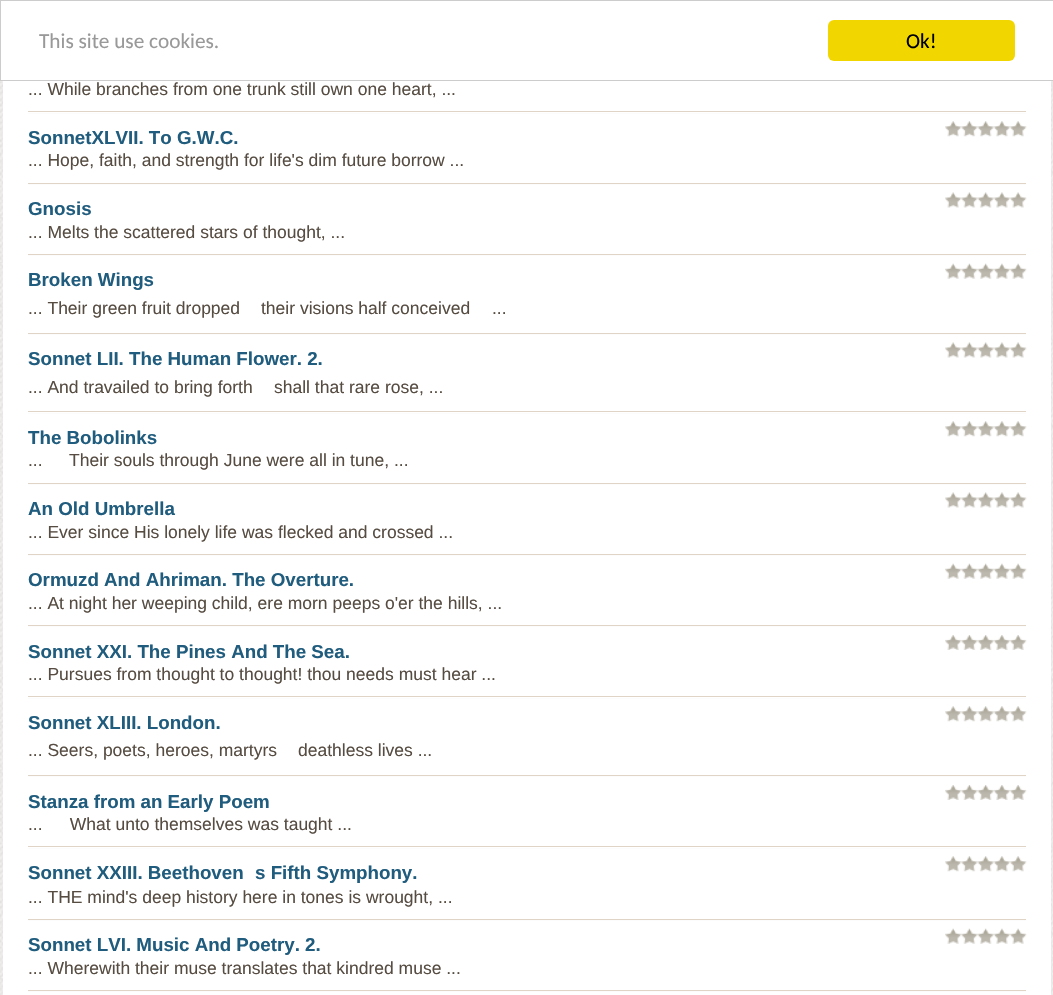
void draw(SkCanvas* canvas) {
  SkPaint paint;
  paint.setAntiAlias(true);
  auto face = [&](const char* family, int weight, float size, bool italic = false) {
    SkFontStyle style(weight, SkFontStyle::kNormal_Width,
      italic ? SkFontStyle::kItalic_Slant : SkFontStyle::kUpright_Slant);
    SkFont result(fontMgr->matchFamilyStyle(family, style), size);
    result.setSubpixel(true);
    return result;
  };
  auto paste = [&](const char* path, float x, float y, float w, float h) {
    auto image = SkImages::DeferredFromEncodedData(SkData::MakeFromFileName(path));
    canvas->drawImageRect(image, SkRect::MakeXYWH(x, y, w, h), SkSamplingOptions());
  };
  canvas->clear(0xffffffff);
  paste("img/1.png", 0, 125, 1053, 870);
  paste("img/2.png", 0, 81, 1053, 44);
  paint.setStroke(true);
  paint.setStrokeWidth(1);
  paint.setColor(0xffcccccc);
  canvas->drawRect(SkRect::MakeXYWH(0.5f, 0.5f, 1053, 80), paint);
  paint.setStroke(false);
  paint.setColor(0xfff1d600);
  canvas->drawRoundRect(SkRect::MakeXYWH(828, 20, 187, 41), 6, 6, paint);
  {
    const struct { float x, y, w, h; SkColor color; } items[] = {
      {3, 81, 1048, 914, 0xffffffff},
      {28, 111, 998, 1, 0xffe0d4c7},
      {28, 113, 998, 1, 0xfffcfcfc},
    };
    for (auto [x, y, w, h, color] : items) {
      paint.setColor(color);
      canvas->drawRect(SkRect::MakeXYWH(x, y, w, h), paint);
    }
  }
  paste("img/3.png", 945, 121, 17, 16);
  paste("img/4.png", 961, 121, 17, 16);
  paste("img/5.png", 977, 121, 17, 16);
  paste("img/6.png", 993, 121, 17, 16);
  paste("img/7.png", 1010, 121, 17, 16);
  paint.setColor(0xffe0d4c7);
  canvas->drawRect(SkRect::MakeXYWH(28, 183, 998, 1), paint);
  paint.setColor(0xfffcfcfc);
  canvas->drawRect(SkRect::MakeXYWH(28, 184, 998, 1), paint);
  paste("img/8.png", 945, 192, 17, 16);
  paste("img/9.png", 961, 192, 17, 16);
  paste("img/10.png", 977, 192, 17, 16);
  paste("img/11.png", 993, 192, 17, 16);
  paste("img/12.png", 1010, 192, 17, 16);
  paint.setColor(0xffe0d4c7);
  canvas->drawRect(SkRect::MakeXYWH(28, 254, 998, 1), paint);
  paint.setColor(0xfffcfcfc);
  canvas->drawRect(SkRect::MakeXYWH(28, 255, 998, 1), paint);
  paste("img/13.png", 945, 263, 17, 16);
  paste("img/14.png", 961, 263, 17, 16);
  paste("img/15.png", 977, 263, 17, 16);
  paste("img/16.png", 993, 263, 17, 16);
  paste("img/17.png", 1010, 263, 17, 16);
  paint.setColor(0xffe0d4c7);
  canvas->drawRect(SkRect::MakeXYWH(28, 333, 998, 1), paint);
  paint.setColor(0xfffcfcfc);
  canvas->drawRect(SkRect::MakeXYWH(28, 334, 998, 1), paint);
  paste("img/8.png", 945, 342, 17, 16);
  paste("img/9.png", 961, 342, 17, 16);
  paste("img/10.png", 977, 342, 17, 16);
  paste("img/11.png", 993, 342, 17, 16);
  paste("img/12.png", 1010, 342, 17, 16);
  paint.setColor(0xffe0d4c7);
  canvas->drawRect(SkRect::MakeXYWH(28, 411, 998, 1), paint);
  paint.setColor(0xfffcfcfc);
  canvas->drawRect(SkRect::MakeXYWH(28, 413, 998, 1), paint);
  paste("img/3.png", 945, 421, 17, 16);
  paste("img/4.png", 961, 421, 17, 16);
  paste("img/5.png", 977, 421, 17, 16);
  paste("img/6.png", 993, 421, 17, 16);
  paste("img/7.png", 1010, 421, 17, 16);
  paint.setColor(0xffe0d4c7);
  canvas->drawRect(SkRect::MakeXYWH(28, 483, 998, 1), paint);
  paint.setColor(0xfffcfcfc);
  canvas->drawRect(SkRect::MakeXYWH(28, 484, 998, 1), paint);
  paste("img/8.png", 945, 492, 17, 16);
  paste("img/9.png", 961, 492, 17, 16);
  paste("img/10.png", 977, 492, 17, 16);
  paste("img/11.png", 993, 492, 17, 16);
  paste("img/12.png", 1010, 492, 17, 16);
  paint.setColor(0xffe0d4c7);
  canvas->drawRect(SkRect::MakeXYWH(28, 554, 998, 1), paint);
  paint.setColor(0xfffcfcfc);
  canvas->drawRect(SkRect::MakeXYWH(28, 555, 998, 1), paint);
  paste("img/13.png", 945, 563, 17, 16);
  paste("img/14.png", 961, 563, 17, 16);
  paste("img/15.png", 977, 563, 17, 16);
  paste("img/16.png", 993, 563, 17, 16);
  paste("img/17.png", 1010, 563, 17, 16);
  paint.setColor(0xffe0d4c7);
  canvas->drawRect(SkRect::MakeXYWH(28, 625, 998, 1), paint);
  paint.setColor(0xfffcfcfc);
  canvas->drawRect(SkRect::MakeXYWH(28, 626, 998, 1), paint);
  paste("img/18.png", 945, 635, 17, 15);
  paste("img/19.png", 961, 635, 17, 15);
  paste("img/20.png", 977, 635, 17, 15);
  paste("img/21.png", 993, 635, 17, 15);
  paste("img/22.png", 1010, 635, 17, 15);
  paint.setColor(0xffe0d4c7);
  canvas->drawRect(SkRect::MakeXYWH(28, 696, 998, 1), paint);
  paint.setColor(0xfffcfcfc);
  canvas->drawRect(SkRect::MakeXYWH(28, 698, 998, 1), paint);
  paste("img/3.png", 945, 706, 17, 16);
  paste("img/4.png", 961, 706, 17, 16);
  paste("img/5.png", 977, 706, 17, 16);
  paste("img/6.png", 993, 706, 17, 16);
  paste("img/7.png", 1010, 706, 17, 16);
  paint.setColor(0xffe0d4c7);
  canvas->drawRect(SkRect::MakeXYWH(28, 775, 998, 1), paint);
  paint.setColor(0xfffcfcfc);
  canvas->drawRect(SkRect::MakeXYWH(28, 776, 998, 1), paint);
  paste("img/18.png", 945, 785, 17, 15);
  paste("img/19.png", 961, 785, 17, 15);
  paste("img/20.png", 977, 785, 17, 15);
  paste("img/21.png", 993, 785, 17, 15);
  paste("img/22.png", 1010, 785, 17, 15);
  paint.setColor(0xffe0d4c7);
  canvas->drawRect(SkRect::MakeXYWH(28, 846, 998, 1), paint);
  paint.setColor(0xfffcfcfc);
  canvas->drawRect(SkRect::MakeXYWH(28, 848, 998, 1), paint);
  paste("img/3.png", 945, 856, 17, 16);
  paste("img/4.png", 961, 856, 17, 16);
  paste("img/5.png", 977, 856, 17, 16);
  paste("img/6.png", 993, 856, 17, 16);
  paste("img/7.png", 1010, 856, 17, 16);
  paint.setColor(0xffe0d4c7);
  canvas->drawRect(SkRect::MakeXYWH(28, 919, 998, 1), paint);
  paint.setColor(0xfffcfcfc);
  canvas->drawRect(SkRect::MakeXYWH(28, 920, 998, 1), paint);
  paste("img/13.png", 945, 928, 17, 16);
  paste("img/14.png", 961, 928, 17, 16);
  paste("img/15.png", 977, 928, 17, 16);
  paste("img/16.png", 993, 928, 17, 16);
  paste("img/17.png", 1010, 928, 17, 16);
  paint.setColor(0xffe0d4c7);
  canvas->drawRect(SkRect::MakeXYWH(28, 990, 998, 1), paint);
  paint.setColor(0xfffcfcfc);
  canvas->drawRect(SkRect::MakeXYWH(28, 991, 998, 1), paint);
  auto f0 = face("Carlito", 400, 21.25f);
  paint.setColor(0xff999999);
  canvas->drawString("This site use cookies.", 39, 48, f0, paint);
  paint.setColor(0xff000000);
  canvas->drawString("Ok!", 906, 48, f0, paint);
  auto f1 = face("Liberation Sans", 400, 17.5f);
  paint.setColor(0xff564c42);
  canvas->drawString("... While branches from one trunk still own one heart, ...", 28, 95, f1, paint);
  auto f2 = face("Liberation Sans", 700, 18.75f);
  paint.setColor(0xff205c7d);
  canvas->drawString("SonnetXLVII. To G.W.C.", 28, 144, f2, paint);
  paint.setColor(0xff564c42);
  canvas->drawString("... Hope, faith, and strength for life's dim future borrow ...", 28, 166, f1, paint);
  paint.setColor(0xff205c7d);
  canvas->drawString("Gnosis", 28, 215, f2, paint);
  paint.setColor(0xff564c42);
  canvas->drawString("... Melts the scattered stars of thought, ...", 28, 238, f1, paint);
  paint.setColor(0xff205c7d);
  canvas->drawString("Broken Wings", 28, 286, f2, paint);
  paint.setColor(0xff564c42);
  {
    const struct { const char* s; float x, y; } items[] = {
      {"... Their green fruit dropped", 28, 314},
      {"their visions half conceived", 261, 314},
      {"...", 492, 314},
    };
    for (auto [s, x, y] : items) {
      canvas->drawString(s, x, y, f1, paint);
    }
  }
  paint.setColor(0xff205c7d);
  canvas->drawString("Sonnet LII. The Human Flower. 2.", 28, 365, f2, paint);
  paint.setColor(0xff564c42);
  canvas->drawString("... And travailed to bring forth", 28, 393, f1, paint);
  canvas->drawString("shall that rare rose, ...", 274, 393, f1, paint);
  paint.setColor(0xff205c7d);
  canvas->drawString("The Bobolinks", 28, 444, f2, paint);
  paint.setColor(0xff564c42);
  canvas->drawString("...", 28, 466, f1, paint);
  canvas->drawString("Their souls through June were all in tune, ...", 69, 466, f1, paint);
  paint.setColor(0xff205c7d);
  canvas->drawString("An Old Umbrella", 28, 515, f2, paint);
  paint.setColor(0xff564c42);
  canvas->drawString("... Ever since His lonely life was flecked and crossed ...", 28, 538, f1, paint);
  paint.setColor(0xff205c7d);
  canvas->drawString("Ormuzd And Ahriman. The Overture.", 28, 586, f2, paint);
  paint.setColor(0xff564c42);
  canvas->drawString("... At night her weeping child, ere morn peeps o'er the hills, ...", 28, 609, f1, paint);
  paint.setColor(0xff205c7d);
  canvas->drawString("Sonnet XXI. The Pines And The Sea.", 28, 658, f2, paint);
  paint.setColor(0xff564c42);
  canvas->drawString("... Pursues from thought to thought! thou needs must hear ...", 28, 680, f1, paint);
  paint.setColor(0xff205c7d);
  canvas->drawString("Sonnet XLIII. London.", 28, 729, f2, paint);
  paint.setColor(0xff564c42);
  canvas->drawString("... Seers, poets, heroes, martyrs", 28, 756, f1, paint);
  canvas->drawString("deathless lives ...", 298, 756, f1, paint);
  paint.setColor(0xff205c7d);
  canvas->drawString("Stanza from an Early Poem", 28, 808, f2, paint);
  paint.setColor(0xff564c42);
  canvas->drawString("...   What unto themselves was taught ...", 28, 830, f1, paint);
  paint.setColor(0xff205c7d);
  canvas->drawString("Sonnet XXIII. Beethoven", 28, 879, f2, paint);
  canvas->drawString("s Fifth Symphony.", 255, 879, f2, paint);
  paint.setColor(0xff564c42);
  canvas->drawString("... THE mind's deep history here in tones is wrought, ...", 28, 903, f1, paint);
  paint.setColor(0xff205c7d);
  canvas->drawString("Sonnet LVI. Music And Poetry. 2.", 28, 951, f2, paint);
  paint.setColor(0xff564c42);
  canvas->drawString("... Wherewith their muse translates that kindred muse ...", 28, 974, f1, paint);
}
